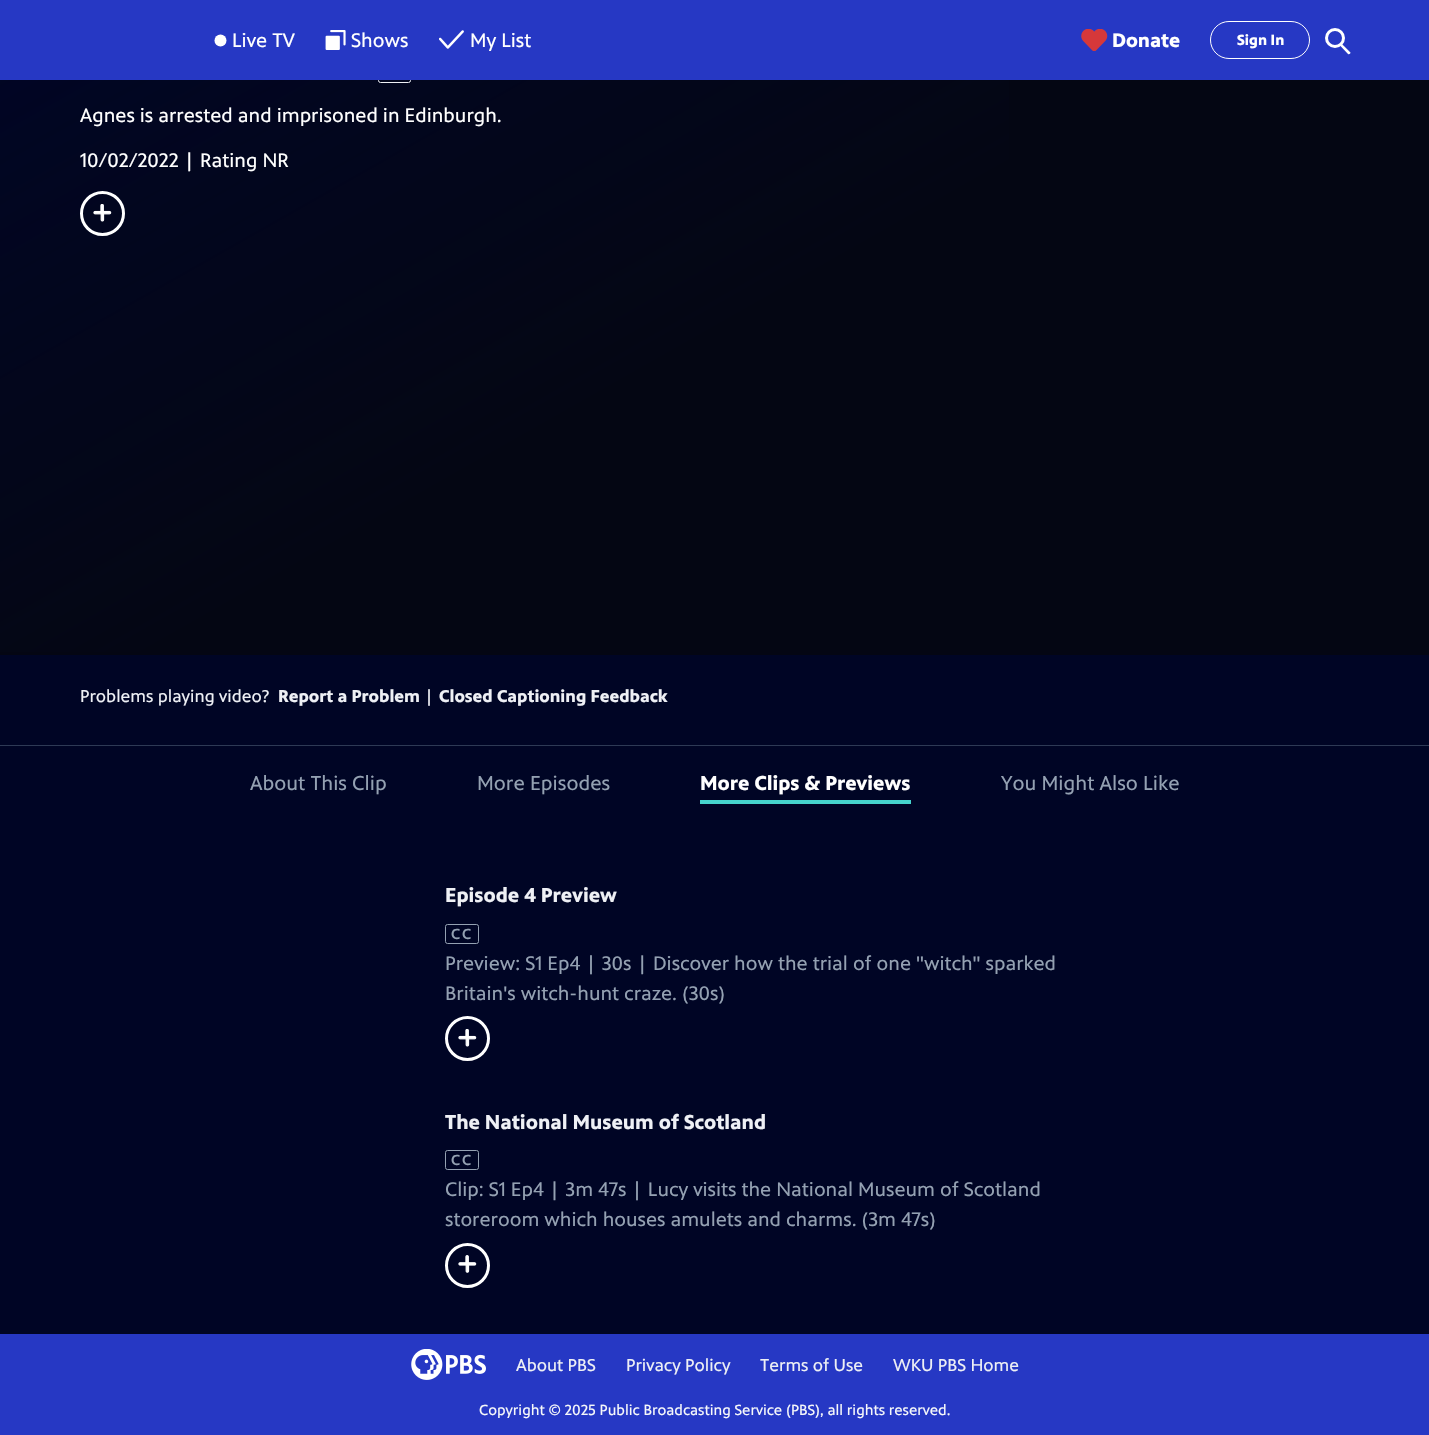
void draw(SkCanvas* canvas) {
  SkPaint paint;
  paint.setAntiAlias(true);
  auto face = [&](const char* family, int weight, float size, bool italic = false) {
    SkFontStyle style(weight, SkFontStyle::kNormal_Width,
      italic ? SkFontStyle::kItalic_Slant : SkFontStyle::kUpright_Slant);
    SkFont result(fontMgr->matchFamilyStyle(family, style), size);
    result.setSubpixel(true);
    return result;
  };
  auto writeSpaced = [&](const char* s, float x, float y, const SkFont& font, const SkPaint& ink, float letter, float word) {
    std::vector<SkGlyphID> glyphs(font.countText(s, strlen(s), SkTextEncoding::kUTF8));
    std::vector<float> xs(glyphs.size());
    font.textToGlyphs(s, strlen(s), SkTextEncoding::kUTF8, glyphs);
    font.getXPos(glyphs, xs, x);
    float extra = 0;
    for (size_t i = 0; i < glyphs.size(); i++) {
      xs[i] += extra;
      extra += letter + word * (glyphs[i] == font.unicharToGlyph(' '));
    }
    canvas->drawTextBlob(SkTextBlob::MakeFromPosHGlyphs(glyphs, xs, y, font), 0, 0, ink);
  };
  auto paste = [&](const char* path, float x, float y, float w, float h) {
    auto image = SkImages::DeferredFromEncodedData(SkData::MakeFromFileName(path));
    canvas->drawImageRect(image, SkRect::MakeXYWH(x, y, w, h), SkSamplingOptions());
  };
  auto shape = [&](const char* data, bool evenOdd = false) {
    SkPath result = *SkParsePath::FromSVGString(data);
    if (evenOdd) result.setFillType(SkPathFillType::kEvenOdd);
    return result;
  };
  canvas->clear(0xff000525);
  paint.setColor(0xff040613);
  canvas->drawRect(SkRect::MakeXYWH(0, 80, 1429, 575), paint);
  {
    const SkColor colors[] = {0xff000525, 0x00000525};
    const float stops[] = {0.1f, 0.55f};
    const SkPoint ends[] = {{368, -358}, {1062, 867}};
    paint.setShader(SkGradientShader::MakeLinear(ends, colors, stops, 2, SkTileMode::kClamp));
    paint.setAlpha(255);
  }
  canvas->drawRect(SkRect::MakeXYWH(0, 80, 1009, 572), paint);
  paint.setStroke(true);
  paint.setStrokeWidth(1);
  paint.setShader(nullptr);
  paint.setColor(0xffeef0f5);
  canvas->drawRoundRect(SkRect::MakeXYWH(378.5f, 63.5f, 32, 19), 2, 2, paint);
  paint.setStroke(false);
  paint.setColor(0xff2638c4);
  canvas->drawRect(SkRect::MakeXYWH(0, 0, 1429, 80), paint);
  paint.setColor(0xffffffff);
  canvas->drawCircle(220.5f, 40.5f, 6, paint);
  paste("img/1.png", 325, 30, 21, 20);
  paste("img/2.png", 439, 30, 25, 19);
  paste("img/3.png", 1081, 29, 27, 22);
  paint.setStroke(true);
  canvas->drawRoundRect(SkRect::MakeXYWH(1210.5f, 21.5f, 99, 37), 18.5f, 18.5f, paint);
  paint.setStrokeWidth(3);
  canvas->drawCircle(1335, 38, 8.5f, paint);
  paint.setStroke(false);
  canvas->drawPath(shape("M1348 54L1339.5 45L1340 44C1341 42 1344 46 1344.5 46.5L1350.5 52.5C1350.5 54 1349 54.5 1348 54Z"), paint);
  paint.setStroke(true);
  canvas->drawCircle(102.5f, 213.5f, 21, paint);
  paste("img/4.png", 93, 204, 19, 18);
  paint.setStroke(false);
  paint.setColor(0xff2e3a55);
  canvas->drawRect(SkRect::MakeXYWH(0, 745, 1429, 1), paint);
  paint.setColor(0xff46d4cd);
  canvas->drawRect(SkRect::MakeXYWH(700, 800, 211, 4), paint);
  paint.setStroke(true);
  paint.setStrokeWidth(1);
  paint.setColor(0xff94a1b2);
  canvas->drawRoundRect(SkRect::MakeXYWH(445.5f, 924.5f, 33, 19), 2, 2, paint);
  paint.setStrokeWidth(3);
  paint.setColor(0xffffffff);
  canvas->drawCircle(467.5f, 1038.5f, 21, paint);
  paste("img/5.png", 458, 1029, 19, 18);
  paint.setStrokeWidth(1);
  paint.setColor(0xff94a1b2);
  canvas->drawRoundRect(SkRect::MakeXYWH(445.5f, 1150.5f, 33, 19), 2, 2, paint);
  paint.setStrokeWidth(3);
  paint.setColor(0xffffffff);
  canvas->drawCircle(467.5f, 1265.5f, 21, paint);
  paste("img/6.png", 458, 1255, 19, 18);
  paint.setStroke(false);
  paint.setColor(0xff2638c4);
  canvas->drawRect(SkRect::MakeXYWH(0, 1334, 1429, 101), paint);
  paste("img/7.png", 411, 1349, 75, 31);
  auto f0 = face("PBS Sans", 400, 20);
  paint.setColor(0xffffffff);
  {
    const struct { const char* s; float x, y; } items[] = {
      {"Live TV", 232, 47},
      {"Shows", 351, 47},
      {"My List", 470, 47},
    };
    for (auto [s, x, y] : items) {
      canvas->drawString(s, x, y, f0, paint);
    }
  }
  auto f1 = face("PBS Sans", 700, 20);
  canvas->drawString("Donate", 1112, 47, f1, paint);
  auto f2 = face("PBS Sans", 700, 15);
  canvas->drawString("Sign In", 1237, 45, f2, paint);
  canvas->drawString("Agnes is arrested and imprisoned in Edinburgh.", 80, 122, f0, paint);
  canvas->drawString("10/02/2022 | Rating NR", 80, 167, f0, paint);
  auto f3 = face("PBS Sans", 400, 17.5f);
  paint.setColor(0xffeef0f5);
  canvas->drawString("Problems playing video?", 80, 702, f3, paint);
  auto f4 = face("PBS Sans", 700, 17.5f);
  canvas->drawString("Report a Problem", 278, 702, f4, paint);
  canvas->drawString("|", 424, 702, f3, paint);
  canvas->drawString("Closed Captioning Feedback", 439, 702, f4, paint);
  auto f5 = face("PBS Sans", 400, 20.5f);
  paint.setColor(0xff94a1b2);
  canvas->drawString("About This Clip", 250, 790, f5, paint);
  canvas->drawString("More Episodes", 477, 790, f5, paint);
  auto f6 = face("PBS Sans", 700, 20.5f);
  paint.setColor(0xffffffff);
  canvas->drawString("More Clips & Previews", 700, 790, f6, paint);
  paint.setColor(0xff94a1b2);
  canvas->drawString("You Might Also Like", 1001, 790, f5, paint);
  paint.setColor(0xffeef0f5);
  canvas->drawString("Episode 4 Preview", 445, 902, f6, paint);
  auto f7 = face("PBS Sans", 500, 15);
  paint.setColor(0xff94a1b2);
  writeSpaced("CC", 451, 939, f7, paint, 2, 0);
  canvas->drawString("Preview: S1 Ep4 | 30s | Discover how the trial of one \"witch\" sparked", 445, 970, f0, paint);
  canvas->drawString("Britain's witch-hunt craze. (30s)", 445, 1000, f0, paint);
  paint.setColor(0xffeef0f5);
  canvas->drawString("The National Museum of Scotland", 445, 1129, f6, paint);
  paint.setColor(0xff94a1b2);
  writeSpaced("CC", 451, 1165, f7, paint, 2, 0);
  canvas->drawString("Clip: S1 Ep4 | 3m 47s | Lucy visits the National Museum of Scotland", 445, 1196, f0, paint);
  canvas->drawString("storeroom which houses amulets and charms. (3m 47s)", 445, 1226, f0, paint);
  paint.setColor(0xffeef0f5);
  {
    const struct { const char* s; float x, y; } items[] = {
      {"About PBS", 516, 1371},
      {"Privacy Policy", 626, 1371},
      {"Terms of Use", 760, 1371},
      {"WKU PBS Home", 893, 1371},
    };
    for (auto [s, x, y] : items) {
      canvas->drawString(s, x, y, f3, paint);
    }
  }
  auto f8 = face("PBS Sans", 400, 15);
  paint.setColor(0xfff6f8fa);
  canvas->drawString("Copyright © 2025 Public Broadcasting Service (PBS), all rights reserved.", 479, 1415, f8, paint);
}
